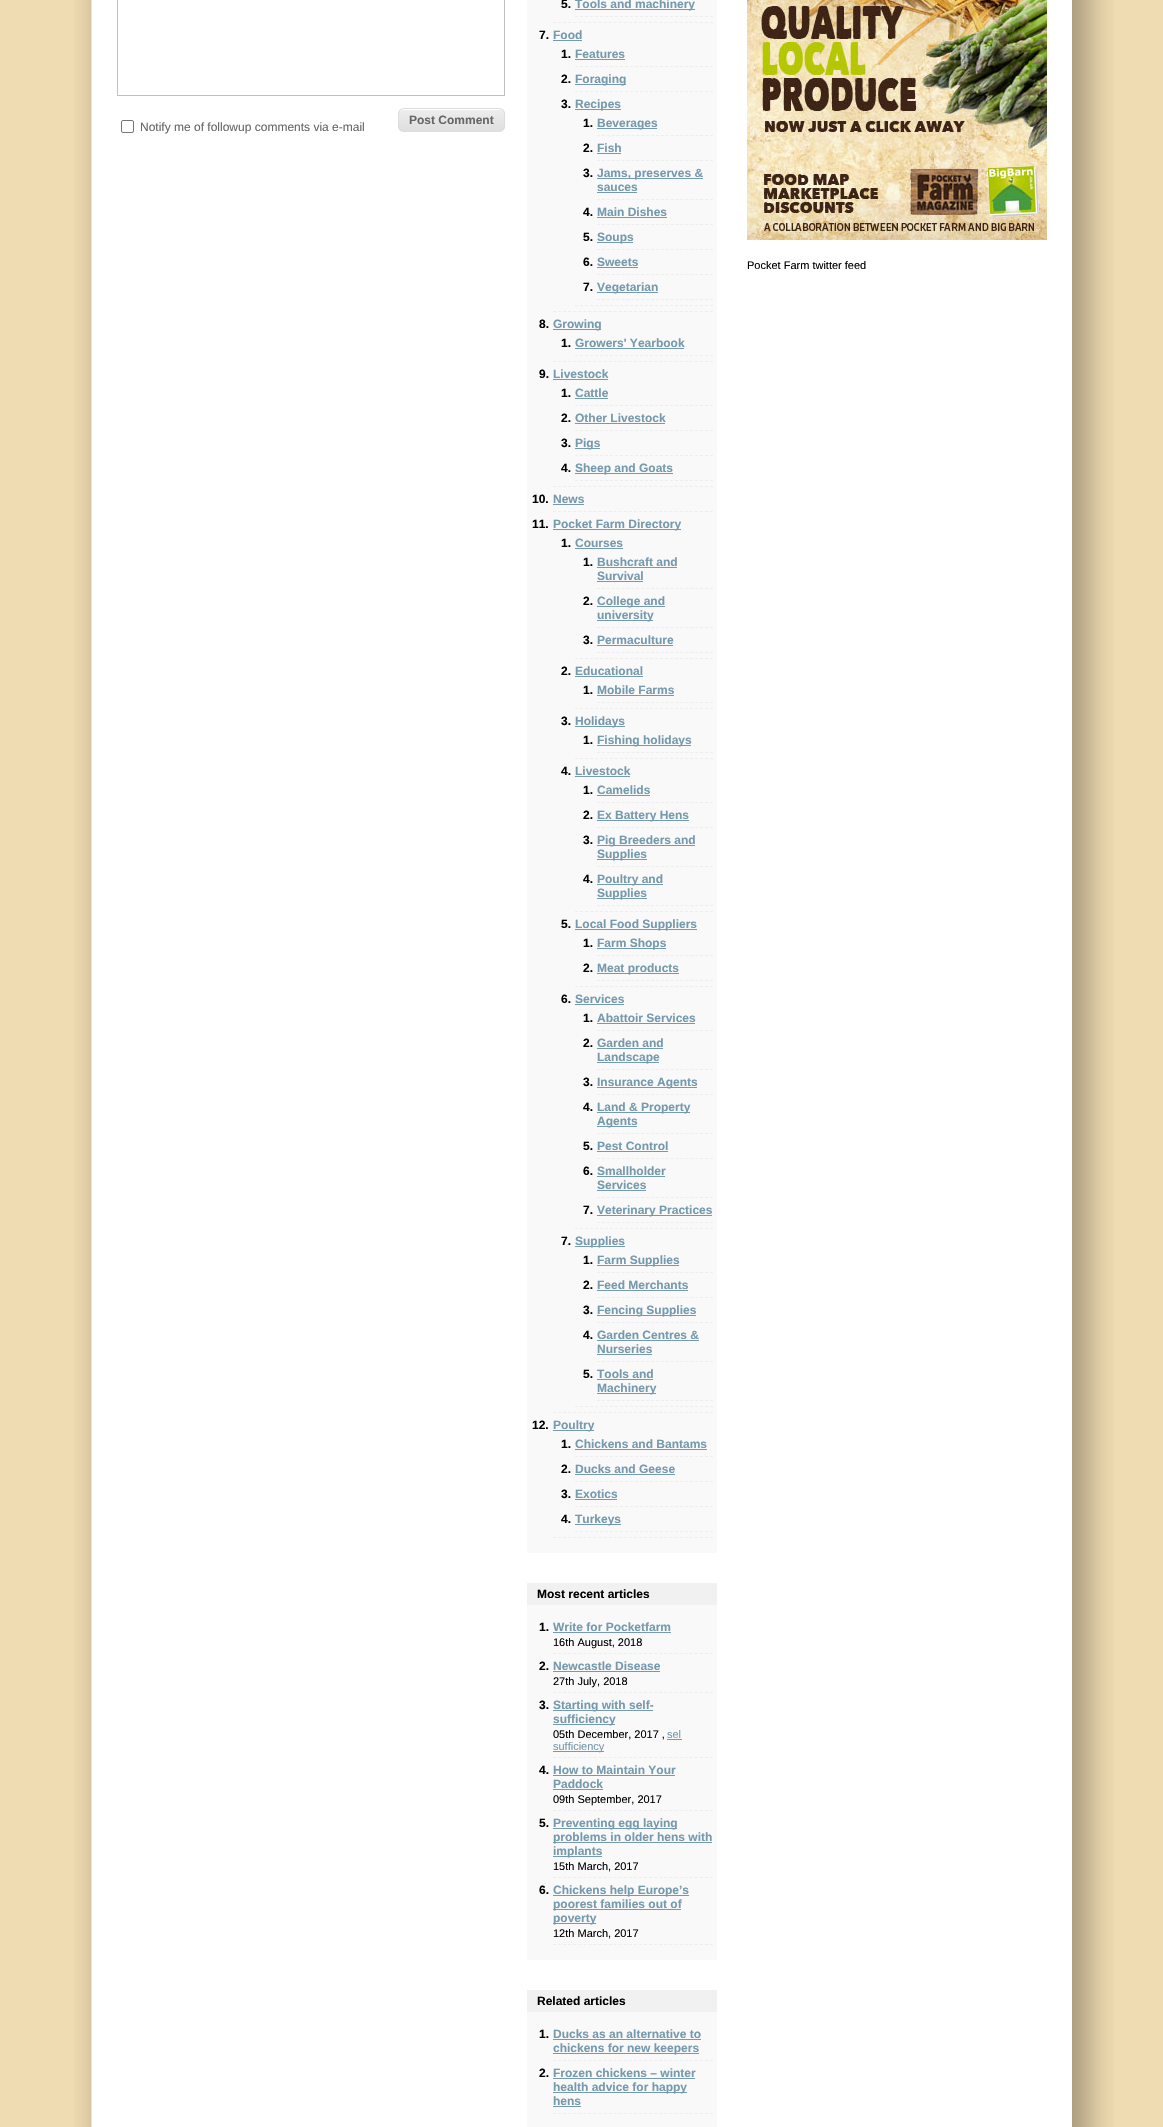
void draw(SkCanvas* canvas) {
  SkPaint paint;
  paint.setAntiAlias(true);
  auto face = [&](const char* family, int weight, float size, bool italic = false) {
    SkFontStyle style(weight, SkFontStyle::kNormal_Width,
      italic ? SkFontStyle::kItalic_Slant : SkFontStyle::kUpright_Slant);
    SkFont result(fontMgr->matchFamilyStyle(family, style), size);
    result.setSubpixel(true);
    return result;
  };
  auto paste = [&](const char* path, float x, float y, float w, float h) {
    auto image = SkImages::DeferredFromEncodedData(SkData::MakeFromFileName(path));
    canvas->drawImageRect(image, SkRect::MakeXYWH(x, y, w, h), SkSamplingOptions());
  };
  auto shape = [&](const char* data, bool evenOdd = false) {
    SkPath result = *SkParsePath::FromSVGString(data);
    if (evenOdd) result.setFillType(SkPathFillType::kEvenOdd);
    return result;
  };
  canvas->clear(0xfff0dcb2);
  paste("img/1.png", 74, 0, 1040, 2127);
  paint.setColor(0xffffffff);
  canvas->drawRect(SkRect::MakeXYWH(1071, 0, 1, 2127), paint);
  paint.setStroke(true);
  paint.setStrokeWidth(1);
  paint.setColor(0xffc0c0c0);
  canvas->drawRect(SkRect::MakeXYWH(117.5f, -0.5f, 387, 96), paint);
  canvas->save();
  canvas->clipPath(shape("M404 108H499C502.5 108 505 110.5 505 114V126C505 129.5 502.5 132 499 132H404C400.5 132 398 129.5 398 126V114C398 110.5 400.5 108 404 108Z"), true);
  paint.setStroke(false);
  {
    const SkColor colors[] = {0xffededed, 0xffdfdfdf};
    const float stops[] = {0.05f, 1};
    const SkPoint ends[] = {{399, 109}, {399, 131}};
    paint.setShader(SkGradientShader::MakeLinear(ends, colors, stops, 2, SkTileMode::kClamp));
    paint.setAlpha(255);
  }
  canvas->drawRect(SkRect::MakeXYWH(398, 109, 107, 22), paint);
  canvas->restore();
  paint.setShader(nullptr);
  paint.setColor(0xffffffff);
  canvas->drawPath(shape("M404 110H499C502 110 504 112 504 115C504 105 488 109 483 109H420C415 109 399 105 399 115C399 112 401 110 404 110Z"), paint);
  paint.setStroke(true);
  paint.setColor(0xffdcdcdc);
  canvas->drawRoundRect(SkRect::MakeXYWH(398.5f, 108.5f, 106, 23), 5.5f, 5.5f, paint);
  paint.setColor(0xff767676);
  canvas->drawRoundRect(SkRect::MakeXYWH(121.5f, 120.5f, 12, 12), 1.5f, 1.5f, paint);
  paint.setStroke(false);
  paint.setColor(0xfff9f9f9);
  canvas->drawRect(SkRect::MakeXYWH(527, 0, 190, 1553), paint);
  paint.setStroke(true);
  paint.setColor(0xffeeeeee);
  paint.setPathEffect(SkDashPathEffect::Make({{3, 2.06f}}, 0));
  canvas->drawPath(shape("M553 22.5H713"), paint);
  paint.setPathEffect(nullptr);
  paint.setPathEffect(SkDashPathEffect::Make({{3, 2}}, 0));
  canvas->drawPath(shape("M575 16.5H713"), paint);
  paint.setPathEffect(nullptr);
  paint.setStroke(false);
  paint.setColor(0xff7599ad);
  canvas->drawRect(SkRect::MakeXYWH(575, 9, 120, 1), paint);
  paint.setStroke(true);
  paint.setColor(0xffeeeeee);
  paint.setPathEffect(SkDashPathEffect::Make({{3, 2.06f}}, 0));
  canvas->drawPath(shape("M553 311.5H713"), paint);
  paint.setPathEffect(nullptr);
  paint.setStroke(false);
  paint.setColor(0xff7599ad);
  canvas->drawRect(SkRect::MakeXYWH(553, 40, 29, 1), paint);
  paint.setStroke(true);
  paint.setColor(0xffeeeeee);
  paint.setPathEffect(SkDashPathEffect::Make({{3, 2}}, 0));
  canvas->drawPath(shape("M575 66.5H713"), paint);
  paint.setPathEffect(nullptr);
  paint.setStroke(false);
  paint.setColor(0xff7599ad);
  canvas->drawRect(SkRect::MakeXYWH(575, 59, 50, 1), paint);
  paint.setStroke(true);
  paint.setColor(0xffeeeeee);
  paint.setPathEffect(SkDashPathEffect::Make({{3, 2}}, 0));
  canvas->drawPath(shape("M575 91.5H713"), paint);
  paint.setPathEffect(nullptr);
  paint.setStroke(false);
  paint.setColor(0xff7599ad);
  canvas->drawRect(SkRect::MakeXYWH(575, 84, 51, 1), paint);
  paint.setStroke(true);
  paint.setColor(0xffeeeeee);
  paint.setPathEffect(SkDashPathEffect::Make({{3, 2}}, 0));
  canvas->drawPath(shape("M575 305.5H713"), paint);
  paint.setPathEffect(nullptr);
  paint.setStroke(false);
  paint.setColor(0xff7599ad);
  canvas->drawRect(SkRect::MakeXYWH(575, 109, 46, 1), paint);
  paint.setStroke(true);
  paint.setColor(0xffeeeeee);
  paint.setPathEffect(SkDashPathEffect::Make({{3, 1.91f}}, 0));
  canvas->drawPath(shape("M597 135.5H713"), paint);
  paint.setPathEffect(nullptr);
  paint.setStroke(false);
  paint.setColor(0xff7599ad);
  canvas->drawRect(SkRect::MakeXYWH(597, 128, 60, 1), paint);
  paint.setStroke(true);
  paint.setColor(0xffeeeeee);
  paint.setPathEffect(SkDashPathEffect::Make({{3, 1.91f}}, 0));
  canvas->drawPath(shape("M597 160.5H713"), paint);
  paint.setPathEffect(nullptr);
  paint.setStroke(false);
  paint.setColor(0xff7599ad);
  canvas->drawRect(SkRect::MakeXYWH(597, 153, 24, 1), paint);
  paint.setStroke(true);
  paint.setColor(0xffeeeeee);
  paint.setPathEffect(SkDashPathEffect::Make({{3, 1.91f}}, 0));
  canvas->drawPath(shape("M597 199.5H713"), paint);
  paint.setPathEffect(nullptr);
  paint.setStroke(false);
  paint.setColor(0xff7599ad);
  canvas->drawRect(SkRect::MakeXYWH(597, 178, 106, 1), paint);
  canvas->drawRect(SkRect::MakeXYWH(597, 192, 40, 1), paint);
  paint.setStroke(true);
  paint.setColor(0xffeeeeee);
  paint.setPathEffect(SkDashPathEffect::Make({{3, 1.91f}}, 0));
  canvas->drawPath(shape("M597 224.5H713"), paint);
  paint.setPathEffect(nullptr);
  paint.setStroke(false);
  paint.setColor(0xff7599ad);
  canvas->drawRect(SkRect::MakeXYWH(597, 217, 70, 1), paint);
  paint.setStroke(true);
  paint.setColor(0xffeeeeee);
  paint.setPathEffect(SkDashPathEffect::Make({{3, 1.91f}}, 0));
  canvas->drawPath(shape("M597 249.5H713"), paint);
  paint.setPathEffect(nullptr);
  paint.setStroke(false);
  paint.setColor(0xff7599ad);
  canvas->drawRect(SkRect::MakeXYWH(597, 242, 36, 1), paint);
  paint.setStroke(true);
  paint.setColor(0xffeeeeee);
  paint.setPathEffect(SkDashPathEffect::Make({{3, 1.91f}}, 0));
  canvas->drawPath(shape("M597 274.5H713"), paint);
  paint.setPathEffect(nullptr);
  paint.setStroke(false);
  paint.setColor(0xff7599ad);
  canvas->drawRect(SkRect::MakeXYWH(597, 267, 41, 1), paint);
  paint.setStroke(true);
  paint.setColor(0xffeeeeee);
  paint.setPathEffect(SkDashPathEffect::Make({{3, 1.91f}}, 0));
  canvas->drawPath(shape("M597 299.5H713"), paint);
  paint.setPathEffect(nullptr);
  paint.setStroke(false);
  paint.setColor(0xff7599ad);
  canvas->drawRect(SkRect::MakeXYWH(597, 292, 61, 1), paint);
  paint.setStroke(true);
  paint.setColor(0xffeeeeee);
  paint.setPathEffect(SkDashPathEffect::Make({{3, 2.06f}}, 0));
  canvas->drawPath(shape("M553 361.5H713"), paint);
  paint.setPathEffect(nullptr);
  paint.setStroke(false);
  paint.setColor(0xff7599ad);
  canvas->drawRect(SkRect::MakeXYWH(553, 329, 48, 1), paint);
  paint.setStroke(true);
  paint.setColor(0xffeeeeee);
  paint.setPathEffect(SkDashPathEffect::Make({{3, 2}}, 0));
  canvas->drawPath(shape("M575 355.5H713"), paint);
  paint.setPathEffect(nullptr);
  paint.setStroke(false);
  paint.setColor(0xff7599ad);
  canvas->drawRect(SkRect::MakeXYWH(575, 348, 109, 1), paint);
  paint.setStroke(true);
  paint.setColor(0xffeeeeee);
  paint.setPathEffect(SkDashPathEffect::Make({{3, 2.06f}}, 0));
  canvas->drawPath(shape("M553 486.5H713"), paint);
  paint.setPathEffect(nullptr);
  paint.setStroke(false);
  paint.setColor(0xff7599ad);
  canvas->drawRect(SkRect::MakeXYWH(553, 379, 55, 1), paint);
  paint.setStroke(true);
  paint.setColor(0xffeeeeee);
  paint.setPathEffect(SkDashPathEffect::Make({{3, 2}}, 0));
  canvas->drawPath(shape("M575 405.5H713"), paint);
  paint.setPathEffect(nullptr);
  paint.setStroke(false);
  paint.setColor(0xff7599ad);
  canvas->drawRect(SkRect::MakeXYWH(575, 398, 33, 1), paint);
  paint.setStroke(true);
  paint.setColor(0xffeeeeee);
  paint.setPathEffect(SkDashPathEffect::Make({{3, 2}}, 0));
  canvas->drawPath(shape("M575 430.5H713"), paint);
  paint.setPathEffect(nullptr);
  paint.setStroke(false);
  paint.setColor(0xff7599ad);
  canvas->drawRect(SkRect::MakeXYWH(575, 423, 90, 1), paint);
  paint.setStroke(true);
  paint.setColor(0xffeeeeee);
  paint.setPathEffect(SkDashPathEffect::Make({{3, 2}}, 0));
  canvas->drawPath(shape("M575 455.5H713"), paint);
  paint.setPathEffect(nullptr);
  paint.setStroke(false);
  paint.setColor(0xff7599ad);
  canvas->drawRect(SkRect::MakeXYWH(575, 448, 25, 1), paint);
  paint.setStroke(true);
  paint.setColor(0xffeeeeee);
  paint.setPathEffect(SkDashPathEffect::Make({{3, 2}}, 0));
  canvas->drawPath(shape("M575 480.5H713"), paint);
  paint.setPathEffect(nullptr);
  paint.setStroke(false);
  paint.setColor(0xff7599ad);
  canvas->drawRect(SkRect::MakeXYWH(575, 473, 98, 1), paint);
  paint.setStroke(true);
  paint.setColor(0xffeeeeee);
  paint.setPathEffect(SkDashPathEffect::Make({{3, 2.06f}}, 0));
  canvas->drawPath(shape("M553 511.5H713"), paint);
  paint.setPathEffect(nullptr);
  paint.setStroke(false);
  paint.setColor(0xff7599ad);
  canvas->drawRect(SkRect::MakeXYWH(553, 504, 31, 1), paint);
  paint.setStroke(true);
  paint.setColor(0xffeeeeee);
  paint.setPathEffect(SkDashPathEffect::Make({{3, 2.06f}}, 0));
  canvas->drawPath(shape("M553 1412.5H713"), paint);
  paint.setPathEffect(nullptr);
  paint.setStroke(false);
  paint.setColor(0xff7599ad);
  canvas->drawRect(SkRect::MakeXYWH(553, 529, 128, 1), paint);
  paint.setStroke(true);
  paint.setColor(0xffeeeeee);
  paint.setPathEffect(SkDashPathEffect::Make({{3, 2}}, 0));
  canvas->drawPath(shape("M575 658.5H713"), paint);
  paint.setPathEffect(nullptr);
  paint.setStroke(false);
  paint.setColor(0xff7599ad);
  canvas->drawRect(SkRect::MakeXYWH(575, 548, 48, 1), paint);
  paint.setStroke(true);
  paint.setColor(0xffeeeeee);
  paint.setPathEffect(SkDashPathEffect::Make({{3, 1.91f}}, 0));
  canvas->drawPath(shape("M597 588.5H713"), paint);
  paint.setPathEffect(nullptr);
  paint.setStroke(false);
  paint.setColor(0xff7599ad);
  canvas->drawRect(SkRect::MakeXYWH(597, 567, 80, 1), paint);
  canvas->drawRect(SkRect::MakeXYWH(597, 581, 46, 1), paint);
  paint.setStroke(true);
  paint.setColor(0xffeeeeee);
  paint.setPathEffect(SkDashPathEffect::Make({{3, 1.91f}}, 0));
  canvas->drawPath(shape("M597 627.5H713"), paint);
  paint.setPathEffect(nullptr);
  paint.setStroke(false);
  paint.setColor(0xff7599ad);
  canvas->drawRect(SkRect::MakeXYWH(597, 606, 68, 1), paint);
  canvas->drawRect(SkRect::MakeXYWH(597, 620, 56, 1), paint);
  paint.setStroke(true);
  paint.setColor(0xffeeeeee);
  paint.setPathEffect(SkDashPathEffect::Make({{3, 1.91f}}, 0));
  canvas->drawPath(shape("M597 652.5H713"), paint);
  paint.setPathEffect(nullptr);
  paint.setStroke(false);
  paint.setColor(0xff7599ad);
  canvas->drawRect(SkRect::MakeXYWH(597, 645, 76, 1), paint);
  paint.setStroke(true);
  paint.setColor(0xffeeeeee);
  paint.setPathEffect(SkDashPathEffect::Make({{3, 2}}, 0));
  canvas->drawPath(shape("M575 708.5H713"), paint);
  paint.setPathEffect(nullptr);
  paint.setStroke(false);
  paint.setColor(0xff7599ad);
  canvas->drawRect(SkRect::MakeXYWH(575, 676, 68, 1), paint);
  paint.setStroke(true);
  paint.setColor(0xffeeeeee);
  paint.setPathEffect(SkDashPathEffect::Make({{3, 1.91f}}, 0));
  canvas->drawPath(shape("M597 702.5H713"), paint);
  paint.setPathEffect(nullptr);
  paint.setStroke(false);
  paint.setColor(0xff7599ad);
  canvas->drawRect(SkRect::MakeXYWH(597, 695, 77, 1), paint);
  paint.setStroke(true);
  paint.setColor(0xffeeeeee);
  paint.setPathEffect(SkDashPathEffect::Make({{3, 2}}, 0));
  canvas->drawPath(shape("M575 758.5H713"), paint);
  paint.setPathEffect(nullptr);
  paint.setStroke(false);
  paint.setColor(0xff7599ad);
  canvas->drawRect(SkRect::MakeXYWH(575, 726, 50, 1), paint);
  paint.setStroke(true);
  paint.setColor(0xffeeeeee);
  paint.setPathEffect(SkDashPathEffect::Make({{3, 1.91f}}, 0));
  canvas->drawPath(shape("M597 752.5H713"), paint);
  paint.setPathEffect(nullptr);
  paint.setStroke(false);
  paint.setColor(0xff7599ad);
  canvas->drawRect(SkRect::MakeXYWH(597, 745, 94, 1), paint);
  paint.setStroke(true);
  paint.setColor(0xffeeeeee);
  paint.setPathEffect(SkDashPathEffect::Make({{3, 2}}, 0));
  canvas->drawPath(shape("M575 911.5H713"), paint);
  paint.setPathEffect(nullptr);
  paint.setStroke(false);
  paint.setColor(0xff7599ad);
  canvas->drawRect(SkRect::MakeXYWH(575, 776, 55, 1), paint);
  paint.setStroke(true);
  paint.setColor(0xffeeeeee);
  paint.setPathEffect(SkDashPathEffect::Make({{3, 1.91f}}, 0));
  canvas->drawPath(shape("M597 802.5H713"), paint);
  paint.setPathEffect(nullptr);
  paint.setStroke(false);
  paint.setColor(0xff7599ad);
  canvas->drawRect(SkRect::MakeXYWH(597, 795, 53, 1), paint);
  paint.setStroke(true);
  paint.setColor(0xffeeeeee);
  paint.setPathEffect(SkDashPathEffect::Make({{3, 1.91f}}, 0));
  canvas->drawPath(shape("M597 827.5H713"), paint);
  paint.setPathEffect(nullptr);
  paint.setStroke(false);
  paint.setColor(0xff7599ad);
  canvas->drawRect(SkRect::MakeXYWH(597, 820, 92, 1), paint);
  paint.setStroke(true);
  paint.setColor(0xffeeeeee);
  paint.setPathEffect(SkDashPathEffect::Make({{3, 1.91f}}, 0));
  canvas->drawPath(shape("M597 866.5H713"), paint);
  paint.setPathEffect(nullptr);
  paint.setStroke(false);
  paint.setColor(0xff7599ad);
  canvas->drawRect(SkRect::MakeXYWH(597, 845, 98, 1), paint);
  canvas->drawRect(SkRect::MakeXYWH(597, 859, 50, 1), paint);
  paint.setStroke(true);
  paint.setColor(0xffeeeeee);
  paint.setPathEffect(SkDashPathEffect::Make({{3, 1.91f}}, 0));
  canvas->drawPath(shape("M597 905.5H713"), paint);
  paint.setPathEffect(nullptr);
  paint.setStroke(false);
  paint.setColor(0xff7599ad);
  canvas->drawRect(SkRect::MakeXYWH(597, 884, 66, 1), paint);
  canvas->drawRect(SkRect::MakeXYWH(597, 898, 50, 1), paint);
  paint.setStroke(true);
  paint.setColor(0xffeeeeee);
  paint.setPathEffect(SkDashPathEffect::Make({{3, 2}}, 0));
  canvas->drawPath(shape("M575 986.5H713"), paint);
  paint.setPathEffect(nullptr);
  paint.setStroke(false);
  paint.setColor(0xff7599ad);
  canvas->drawRect(SkRect::MakeXYWH(575, 929, 122, 1), paint);
  paint.setStroke(true);
  paint.setColor(0xffeeeeee);
  paint.setPathEffect(SkDashPathEffect::Make({{3, 1.91f}}, 0));
  canvas->drawPath(shape("M597 955.5H713"), paint);
  paint.setPathEffect(nullptr);
  paint.setStroke(false);
  paint.setColor(0xff7599ad);
  canvas->drawRect(SkRect::MakeXYWH(597, 948, 69, 1), paint);
  paint.setStroke(true);
  paint.setColor(0xffeeeeee);
  paint.setPathEffect(SkDashPathEffect::Make({{3, 1.91f}}, 0));
  canvas->drawPath(shape("M597 980.5H713"), paint);
  paint.setPathEffect(nullptr);
  paint.setStroke(false);
  paint.setColor(0xff7599ad);
  canvas->drawRect(SkRect::MakeXYWH(597, 973, 82, 1), paint);
  paint.setStroke(true);
  paint.setColor(0xffeeeeee);
  paint.setPathEffect(SkDashPathEffect::Make({{3, 2}}, 0));
  canvas->drawPath(shape("M575 1228.5H713"), paint);
  paint.setPathEffect(nullptr);
  paint.setStroke(false);
  paint.setColor(0xff7599ad);
  canvas->drawRect(SkRect::MakeXYWH(575, 1004, 49, 1), paint);
  paint.setStroke(true);
  paint.setColor(0xffeeeeee);
  paint.setPathEffect(SkDashPathEffect::Make({{3, 1.91f}}, 0));
  canvas->drawPath(shape("M597 1030.5H713"), paint);
  paint.setPathEffect(nullptr);
  paint.setStroke(false);
  paint.setColor(0xff7599ad);
  canvas->drawRect(SkRect::MakeXYWH(597, 1023, 98, 1), paint);
  paint.setStroke(true);
  paint.setColor(0xffeeeeee);
  paint.setPathEffect(SkDashPathEffect::Make({{3, 1.91f}}, 0));
  canvas->drawPath(shape("M597 1069.5H713"), paint);
  paint.setPathEffect(nullptr);
  paint.setStroke(false);
  paint.setColor(0xff7599ad);
  canvas->drawRect(SkRect::MakeXYWH(597, 1048, 66, 1), paint);
  canvas->drawRect(SkRect::MakeXYWH(597, 1062, 62, 1), paint);
  paint.setStroke(true);
  paint.setColor(0xffeeeeee);
  paint.setPathEffect(SkDashPathEffect::Make({{3, 1.91f}}, 0));
  canvas->drawPath(shape("M597 1094.5H713"), paint);
  paint.setPathEffect(nullptr);
  paint.setStroke(false);
  paint.setColor(0xff7599ad);
  canvas->drawRect(SkRect::MakeXYWH(597, 1087, 100, 1), paint);
  paint.setStroke(true);
  paint.setColor(0xffeeeeee);
  paint.setPathEffect(SkDashPathEffect::Make({{3, 1.91f}}, 0));
  canvas->drawPath(shape("M597 1133.5H713"), paint);
  paint.setPathEffect(nullptr);
  paint.setStroke(false);
  paint.setColor(0xff7599ad);
  canvas->drawRect(SkRect::MakeXYWH(597, 1112, 93, 1), paint);
  canvas->drawRect(SkRect::MakeXYWH(597, 1126, 40, 1), paint);
  paint.setStroke(true);
  paint.setColor(0xffeeeeee);
  paint.setPathEffect(SkDashPathEffect::Make({{3, 1.91f}}, 0));
  canvas->drawPath(shape("M597 1158.5H713"), paint);
  paint.setPathEffect(nullptr);
  paint.setStroke(false);
  paint.setColor(0xff7599ad);
  canvas->drawRect(SkRect::MakeXYWH(597, 1151, 71, 1), paint);
  paint.setStroke(true);
  paint.setColor(0xffeeeeee);
  paint.setPathEffect(SkDashPathEffect::Make({{3, 1.91f}}, 0));
  canvas->drawPath(shape("M597 1197.5H713"), paint);
  paint.setPathEffect(nullptr);
  paint.setStroke(false);
  paint.setColor(0xff7599ad);
  canvas->drawRect(SkRect::MakeXYWH(597, 1176, 68, 1), paint);
  canvas->drawRect(SkRect::MakeXYWH(597, 1190, 49, 1), paint);
  paint.setStroke(true);
  paint.setColor(0xffeeeeee);
  paint.setPathEffect(SkDashPathEffect::Make({{3, 1.91f}}, 0));
  canvas->drawPath(shape("M597 1222.5H713"), paint);
  paint.setPathEffect(nullptr);
  paint.setStroke(false);
  paint.setColor(0xff7599ad);
  canvas->drawRect(SkRect::MakeXYWH(597, 1215, 115, 1), paint);
  paint.setStroke(true);
  paint.setColor(0xffeeeeee);
  paint.setPathEffect(SkDashPathEffect::Make({{3, 2}}, 0));
  canvas->drawPath(shape("M575 1406.5H713"), paint);
  paint.setPathEffect(nullptr);
  paint.setStroke(false);
  paint.setColor(0xff7599ad);
  canvas->drawRect(SkRect::MakeXYWH(575, 1246, 50, 1), paint);
  paint.setStroke(true);
  paint.setColor(0xffeeeeee);
  paint.setPathEffect(SkDashPathEffect::Make({{3, 1.91f}}, 0));
  canvas->drawPath(shape("M597 1272.5H713"), paint);
  paint.setPathEffect(nullptr);
  paint.setStroke(false);
  paint.setColor(0xff7599ad);
  canvas->drawRect(SkRect::MakeXYWH(597, 1265, 82, 1), paint);
  paint.setStroke(true);
  paint.setColor(0xffeeeeee);
  paint.setPathEffect(SkDashPathEffect::Make({{3, 1.91f}}, 0));
  canvas->drawPath(shape("M597 1297.5H713"), paint);
  paint.setPathEffect(nullptr);
  paint.setStroke(false);
  paint.setColor(0xff7599ad);
  canvas->drawRect(SkRect::MakeXYWH(597, 1290, 91, 1), paint);
  paint.setStroke(true);
  paint.setColor(0xffeeeeee);
  paint.setPathEffect(SkDashPathEffect::Make({{3, 1.91f}}, 0));
  canvas->drawPath(shape("M597 1322.5H713"), paint);
  paint.setPathEffect(nullptr);
  paint.setStroke(false);
  paint.setColor(0xff7599ad);
  canvas->drawRect(SkRect::MakeXYWH(597, 1315, 99, 1), paint);
  paint.setStroke(true);
  paint.setColor(0xffeeeeee);
  paint.setPathEffect(SkDashPathEffect::Make({{3, 1.91f}}, 0));
  canvas->drawPath(shape("M597 1361.5H713"), paint);
  paint.setPathEffect(nullptr);
  paint.setStroke(false);
  paint.setColor(0xff7599ad);
  canvas->drawRect(SkRect::MakeXYWH(597, 1340, 102, 1), paint);
  canvas->drawRect(SkRect::MakeXYWH(597, 1354, 55, 1), paint);
  paint.setStroke(true);
  paint.setColor(0xffeeeeee);
  paint.setPathEffect(SkDashPathEffect::Make({{3, 1.91f}}, 0));
  canvas->drawPath(shape("M597 1400.5H713"), paint);
  paint.setPathEffect(nullptr);
  paint.setStroke(false);
  paint.setColor(0xff7599ad);
  canvas->drawRect(SkRect::MakeXYWH(597, 1379, 56, 1), paint);
  canvas->drawRect(SkRect::MakeXYWH(597, 1393, 59, 1), paint);
  paint.setStroke(true);
  paint.setColor(0xffeeeeee);
  paint.setPathEffect(SkDashPathEffect::Make({{3, 2.06f}}, 0));
  canvas->drawPath(shape("M553 1537.5H713"), paint);
  paint.setPathEffect(nullptr);
  paint.setStroke(false);
  paint.setColor(0xff7599ad);
  canvas->drawRect(SkRect::MakeXYWH(553, 1430, 41, 1), paint);
  paint.setStroke(true);
  paint.setColor(0xffeeeeee);
  paint.setPathEffect(SkDashPathEffect::Make({{3, 2}}, 0));
  canvas->drawPath(shape("M575 1456.5H713"), paint);
  paint.setPathEffect(nullptr);
  paint.setStroke(false);
  paint.setColor(0xff7599ad);
  canvas->drawRect(SkRect::MakeXYWH(575, 1449, 132, 1), paint);
  paint.setStroke(true);
  paint.setColor(0xffeeeeee);
  paint.setPathEffect(SkDashPathEffect::Make({{3, 2}}, 0));
  canvas->drawPath(shape("M575 1481.5H713"), paint);
  paint.setPathEffect(nullptr);
  paint.setStroke(false);
  paint.setColor(0xff7599ad);
  canvas->drawRect(SkRect::MakeXYWH(575, 1474, 100, 1), paint);
  paint.setStroke(true);
  paint.setColor(0xffeeeeee);
  paint.setPathEffect(SkDashPathEffect::Make({{3, 2}}, 0));
  canvas->drawPath(shape("M575 1506.5H713"), paint);
  paint.setPathEffect(nullptr);
  paint.setStroke(false);
  paint.setColor(0xff7599ad);
  canvas->drawRect(SkRect::MakeXYWH(575, 1499, 42, 1), paint);
  paint.setStroke(true);
  paint.setColor(0xffeeeeee);
  paint.setPathEffect(SkDashPathEffect::Make({{3, 2}}, 0));
  canvas->drawPath(shape("M575 1531.5H713"), paint);
  paint.setPathEffect(nullptr);
  paint.setStroke(false);
  {
    const struct { float x, y, w, h; SkColor color; } items[] = {
      {575, 1524, 46, 1, 0xff7599ad},
      {527, 1583, 190, 22, 0xfff1f1f1},
      {527, 1605, 190, 355, 0xfff9f9f9},
    };
    for (auto [x, y, w, h, color] : items) {
      paint.setColor(color);
      canvas->drawRect(SkRect::MakeXYWH(x, y, w, h), paint);
    }
  }
  paint.setStroke(true);
  paint.setColor(0xffeeeeee);
  paint.setPathEffect(SkDashPathEffect::Make({{3, 2.06f}}, 0));
  canvas->drawPath(shape("M553 1653.5H713"), paint);
  paint.setPathEffect(nullptr);
  paint.setStroke(false);
  paint.setColor(0xff7599ad);
  canvas->drawRect(SkRect::MakeXYWH(553, 1632, 118, 1), paint);
  paint.setStroke(true);
  paint.setColor(0xffeeeeee);
  paint.setPathEffect(SkDashPathEffect::Make({{3, 2.06f}}, 0));
  canvas->drawPath(shape("M553 1692.5H713"), paint);
  paint.setPathEffect(nullptr);
  paint.setStroke(false);
  paint.setColor(0xff7599ad);
  canvas->drawRect(SkRect::MakeXYWH(553, 1671, 107, 1), paint);
  paint.setStroke(true);
  paint.setColor(0xffeeeeee);
  paint.setPathEffect(SkDashPathEffect::Make({{3, 2.06f}}, 0));
  canvas->drawPath(shape("M553 1757.5H713"), paint);
  paint.setPathEffect(nullptr);
  paint.setStroke(false);
  {
    const struct { float x, y, w, h; SkColor color; } items[] = {
      {553, 1710, 100, 1, 0xff7599ad},
      {553, 1724, 62, 1, 0xff7599ad},
      {667, 1739, 15, 1, 0xff7599ad},
      {553, 1751, 51, 1, 0xff7599ad},
    };
    for (auto [x, y, w, h, color] : items) {
      paint.setColor(color);
      canvas->drawRect(SkRect::MakeXYWH(x, y, w, h), paint);
    }
  }
  paint.setStroke(true);
  paint.setColor(0xffeeeeee);
  paint.setPathEffect(SkDashPathEffect::Make({{3, 2.06f}}, 0));
  canvas->drawPath(shape("M553 1810.5H713"), paint);
  paint.setPathEffect(nullptr);
  paint.setStroke(false);
  paint.setColor(0xff7599ad);
  canvas->drawRect(SkRect::MakeXYWH(553, 1775, 122, 1), paint);
  canvas->drawRect(SkRect::MakeXYWH(553, 1789, 50, 1), paint);
  paint.setStroke(true);
  paint.setColor(0xffeeeeee);
  paint.setPathEffect(SkDashPathEffect::Make({{3, 2.06f}}, 0));
  canvas->drawPath(shape("M553 1877.5H713"), paint);
  paint.setPathEffect(nullptr);
  paint.setStroke(false);
  {
    const struct { float x, y, w, h; SkColor color; } items[] = {
      {553, 1828, 124, 1, 0xff7599ad},
      {553, 1842, 159, 1, 0xff7599ad},
      {553, 1856, 49, 1, 0xff7599ad},
    };
    for (auto [x, y, w, h, color] : items) {
      paint.setColor(color);
      canvas->drawRect(SkRect::MakeXYWH(x, y, w, h), paint);
    }
  }
  paint.setStroke(true);
  paint.setColor(0xffeeeeee);
  paint.setPathEffect(SkDashPathEffect::Make({{3, 2.06f}}, 0));
  canvas->drawPath(shape("M553 1944.5H713"), paint);
  paint.setPathEffect(nullptr);
  paint.setStroke(false);
  {
    const struct { float x, y, w, h; SkColor color; } items[] = {
      {553, 1895, 136, 1, 0xff7599ad},
      {553, 1909, 128, 1, 0xff7599ad},
      {553, 1923, 43, 1, 0xff7599ad},
      {527, 1990, 190, 22, 0xfff1f1f1},
      {527, 2012, 190, 115, 0xfff9f9f9},
    };
    for (auto [x, y, w, h, color] : items) {
      paint.setColor(color);
      canvas->drawRect(SkRect::MakeXYWH(x, y, w, h), paint);
    }
  }
  paint.setStroke(true);
  paint.setColor(0xffeeeeee);
  paint.setPathEffect(SkDashPathEffect::Make({{3, 2.06f}}, 0));
  canvas->drawPath(shape("M553 2060.5H713"), paint);
  paint.setPathEffect(nullptr);
  paint.setStroke(false);
  paint.setColor(0xff7599ad);
  canvas->drawRect(SkRect::MakeXYWH(553, 2039, 148, 1), paint);
  canvas->drawRect(SkRect::MakeXYWH(553, 2053, 146, 1), paint);
  paint.setStroke(true);
  paint.setColor(0xffeeeeee);
  paint.setPathEffect(SkDashPathEffect::Make({{3, 2.06f}}, 0));
  canvas->drawPath(shape("M553 2113.5H713"), paint);
  paint.setPathEffect(nullptr);
  paint.setStroke(false);
  {
    const struct { float x, y, w, h; SkColor color; } items[] = {
      {553, 2078, 142, 1, 0xff7599ad},
      {553, 2092, 134, 1, 0xff7599ad},
      {553, 2106, 28, 1, 0xff7599ad},
    };
    for (auto [x, y, w, h, color] : items) {
      paint.setColor(color);
      canvas->drawRect(SkRect::MakeXYWH(x, y, w, h), paint);
    }
  }
  paste("img/2.png", 747, 0, 300, 240);
  auto f0 = face("Liberation Sans", 700, 12);
  paint.setColor(0xff666666);
  canvas->drawString("Post Comment", 409, 124, f0, paint);
  auto f1 = face("Liberation Sans", 400, 12);
  canvas->drawString("Notify me of followup comments via e-mail", 140, 131, f1, paint);
  paint.setColor(0xff000000);
  canvas->drawString("5.", 561, 8, f0, paint);
  paint.setColor(0xff7599ad);
  canvas->drawString("Tools and machinery", 575, 8, f0, paint);
  paint.setColor(0xff000000);
  canvas->drawString("7.", 539, 39, f0, paint);
  paint.setColor(0xff7599ad);
  canvas->drawString("Food", 553, 39, f0, paint);
  paint.setColor(0xff000000);
  canvas->drawString("1.", 561, 58, f0, paint);
  paint.setColor(0xff7599ad);
  canvas->drawString("Features", 575, 58, f0, paint);
  paint.setColor(0xff000000);
  canvas->drawString("2.", 561, 83, f0, paint);
  paint.setColor(0xff7599ad);
  canvas->drawString("Foraging", 575, 83, f0, paint);
  paint.setColor(0xff000000);
  canvas->drawString("3.", 561, 108, f0, paint);
  paint.setColor(0xff7599ad);
  canvas->drawString("Recipes", 575, 108, f0, paint);
  paint.setColor(0xff000000);
  canvas->drawString("1.", 583, 127, f0, paint);
  paint.setColor(0xff7599ad);
  canvas->drawString("Beverages", 597, 127, f0, paint);
  paint.setColor(0xff000000);
  canvas->drawString("2.", 583, 152, f0, paint);
  paint.setColor(0xff7599ad);
  canvas->drawString("Fish", 597, 152, f0, paint);
  paint.setColor(0xff000000);
  canvas->drawString("3.", 583, 177, f0, paint);
  paint.setColor(0xff7599ad);
  canvas->drawString("Jams, preserves &", 597, 177, f0, paint);
  canvas->drawString("sauces", 597, 191, f0, paint);
  paint.setColor(0xff000000);
  canvas->drawString("4.", 583, 216, f0, paint);
  paint.setColor(0xff7599ad);
  canvas->drawString("Main Dishes", 597, 216, f0, paint);
  paint.setColor(0xff000000);
  canvas->drawString("5.", 583, 241, f0, paint);
  paint.setColor(0xff7599ad);
  canvas->drawString("Soups", 597, 241, f0, paint);
  paint.setColor(0xff000000);
  canvas->drawString("6.", 583, 266, f0, paint);
  paint.setColor(0xff7599ad);
  canvas->drawString("Sweets", 597, 266, f0, paint);
  paint.setColor(0xff000000);
  canvas->drawString("7.", 583, 291, f0, paint);
  paint.setColor(0xff7599ad);
  canvas->drawString("Vegetarian", 597, 291, f0, paint);
  paint.setColor(0xff000000);
  canvas->drawString("8.", 539, 328, f0, paint);
  paint.setColor(0xff7599ad);
  canvas->drawString("Growing", 553, 328, f0, paint);
  paint.setColor(0xff000000);
  canvas->drawString("1.", 561, 347, f0, paint);
  paint.setColor(0xff7599ad);
  canvas->drawString("Growers' Yearbook", 575, 347, f0, paint);
  paint.setColor(0xff000000);
  canvas->drawString("9.", 539, 378, f0, paint);
  paint.setColor(0xff7599ad);
  canvas->drawString("Livestock", 553, 378, f0, paint);
  paint.setColor(0xff000000);
  canvas->drawString("1.", 561, 397, f0, paint);
  paint.setColor(0xff7599ad);
  canvas->drawString("Cattle", 575, 397, f0, paint);
  paint.setColor(0xff000000);
  canvas->drawString("2.", 561, 422, f0, paint);
  paint.setColor(0xff7599ad);
  canvas->drawString("Other Livestock", 575, 422, f0, paint);
  paint.setColor(0xff000000);
  canvas->drawString("3.", 561, 447, f0, paint);
  paint.setColor(0xff7599ad);
  canvas->drawString("Pigs", 575, 447, f0, paint);
  paint.setColor(0xff000000);
  canvas->drawString("4.", 561, 472, f0, paint);
  paint.setColor(0xff7599ad);
  canvas->drawString("Sheep and Goats", 575, 472, f0, paint);
  paint.setColor(0xff000000);
  canvas->drawString("10.", 532, 503, f0, paint);
  paint.setColor(0xff7599ad);
  canvas->drawString("News", 553, 503, f0, paint);
  paint.setColor(0xff000000);
  canvas->drawString("11.", 532, 528, f0, paint);
  paint.setColor(0xff7599ad);
  canvas->drawString("Pocket Farm Directory", 553, 528, f0, paint);
  paint.setColor(0xff000000);
  canvas->drawString("1.", 561, 547, f0, paint);
  paint.setColor(0xff7599ad);
  canvas->drawString("Courses", 575, 547, f0, paint);
  paint.setColor(0xff000000);
  canvas->drawString("1.", 583, 566, f0, paint);
  paint.setColor(0xff7599ad);
  canvas->drawString("Bushcraft and", 597, 566, f0, paint);
  canvas->drawString("Survival", 597, 580, f0, paint);
  paint.setColor(0xff000000);
  canvas->drawString("2.", 583, 605, f0, paint);
  paint.setColor(0xff7599ad);
  canvas->drawString("College and", 597, 605, f0, paint);
  canvas->drawString("university", 597, 619, f0, paint);
  paint.setColor(0xff000000);
  canvas->drawString("3.", 583, 644, f0, paint);
  paint.setColor(0xff7599ad);
  canvas->drawString("Permaculture", 597, 644, f0, paint);
  paint.setColor(0xff000000);
  canvas->drawString("2.", 561, 675, f0, paint);
  paint.setColor(0xff7599ad);
  canvas->drawString("Educational", 575, 675, f0, paint);
  paint.setColor(0xff000000);
  canvas->drawString("1.", 583, 694, f0, paint);
  paint.setColor(0xff7599ad);
  canvas->drawString("Mobile Farms", 597, 694, f0, paint);
  paint.setColor(0xff000000);
  canvas->drawString("3.", 561, 725, f0, paint);
  paint.setColor(0xff7599ad);
  canvas->drawString("Holidays", 575, 725, f0, paint);
  paint.setColor(0xff000000);
  canvas->drawString("1.", 583, 744, f0, paint);
  paint.setColor(0xff7599ad);
  canvas->drawString("Fishing holidays", 597, 744, f0, paint);
  paint.setColor(0xff000000);
  canvas->drawString("4.", 561, 775, f0, paint);
  paint.setColor(0xff7599ad);
  canvas->drawString("Livestock", 575, 775, f0, paint);
  paint.setColor(0xff000000);
  canvas->drawString("1.", 583, 794, f0, paint);
  paint.setColor(0xff7599ad);
  canvas->drawString("Camelids", 597, 794, f0, paint);
  paint.setColor(0xff000000);
  canvas->drawString("2.", 583, 819, f0, paint);
  paint.setColor(0xff7599ad);
  canvas->drawString("Ex Battery Hens", 597, 819, f0, paint);
  paint.setColor(0xff000000);
  canvas->drawString("3.", 583, 844, f0, paint);
  paint.setColor(0xff7599ad);
  canvas->drawString("Pig Breeders and", 597, 844, f0, paint);
  canvas->drawString("Supplies", 597, 858, f0, paint);
  paint.setColor(0xff000000);
  canvas->drawString("4.", 583, 883, f0, paint);
  paint.setColor(0xff7599ad);
  canvas->drawString("Poultry and", 597, 883, f0, paint);
  canvas->drawString("Supplies", 597, 897, f0, paint);
  paint.setColor(0xff000000);
  canvas->drawString("5.", 561, 928, f0, paint);
  paint.setColor(0xff7599ad);
  canvas->drawString("Local Food Suppliers", 575, 928, f0, paint);
  paint.setColor(0xff000000);
  canvas->drawString("1.", 583, 947, f0, paint);
  paint.setColor(0xff7599ad);
  canvas->drawString("Farm Shops", 597, 947, f0, paint);
  paint.setColor(0xff000000);
  canvas->drawString("2.", 583, 972, f0, paint);
  paint.setColor(0xff7599ad);
  canvas->drawString("Meat products", 597, 972, f0, paint);
  paint.setColor(0xff000000);
  canvas->drawString("6.", 561, 1003, f0, paint);
  paint.setColor(0xff7599ad);
  canvas->drawString("Services", 575, 1003, f0, paint);
  paint.setColor(0xff000000);
  canvas->drawString("1.", 583, 1022, f0, paint);
  paint.setColor(0xff7599ad);
  canvas->drawString("Abattoir Services", 597, 1022, f0, paint);
  paint.setColor(0xff000000);
  canvas->drawString("2.", 583, 1047, f0, paint);
  paint.setColor(0xff7599ad);
  canvas->drawString("Garden and", 597, 1047, f0, paint);
  canvas->drawString("Landscape", 597, 1061, f0, paint);
  paint.setColor(0xff000000);
  canvas->drawString("3.", 583, 1086, f0, paint);
  paint.setColor(0xff7599ad);
  canvas->drawString("Insurance Agents", 597, 1086, f0, paint);
  paint.setColor(0xff000000);
  canvas->drawString("4.", 583, 1111, f0, paint);
  paint.setColor(0xff7599ad);
  canvas->drawString("Land & Property", 597, 1111, f0, paint);
  canvas->drawString("Agents", 597, 1125, f0, paint);
  paint.setColor(0xff000000);
  canvas->drawString("5.", 583, 1150, f0, paint);
  paint.setColor(0xff7599ad);
  canvas->drawString("Pest Control", 597, 1150, f0, paint);
  paint.setColor(0xff000000);
  canvas->drawString("6.", 583, 1175, f0, paint);
  paint.setColor(0xff7599ad);
  canvas->drawString("Smallholder", 597, 1175, f0, paint);
  canvas->drawString("Services", 597, 1189, f0, paint);
  paint.setColor(0xff000000);
  canvas->drawString("7.", 583, 1214, f0, paint);
  paint.setColor(0xff7599ad);
  canvas->drawString("Veterinary Practices", 597, 1214, f0, paint);
  paint.setColor(0xff000000);
  canvas->drawString("7.", 561, 1245, f0, paint);
  paint.setColor(0xff7599ad);
  canvas->drawString("Supplies", 575, 1245, f0, paint);
  paint.setColor(0xff000000);
  canvas->drawString("1.", 583, 1264, f0, paint);
  paint.setColor(0xff7599ad);
  canvas->drawString("Farm Supplies", 597, 1264, f0, paint);
  paint.setColor(0xff000000);
  canvas->drawString("2.", 583, 1289, f0, paint);
  paint.setColor(0xff7599ad);
  canvas->drawString("Feed Merchants", 597, 1289, f0, paint);
  paint.setColor(0xff000000);
  canvas->drawString("3.", 583, 1314, f0, paint);
  paint.setColor(0xff7599ad);
  canvas->drawString("Fencing Supplies", 597, 1314, f0, paint);
  paint.setColor(0xff000000);
  canvas->drawString("4.", 583, 1339, f0, paint);
  paint.setColor(0xff7599ad);
  canvas->drawString("Garden Centres &", 597, 1339, f0, paint);
  canvas->drawString("Nurseries", 597, 1353, f0, paint);
  paint.setColor(0xff000000);
  canvas->drawString("5.", 583, 1378, f0, paint);
  paint.setColor(0xff7599ad);
  canvas->drawString("Tools and", 597, 1378, f0, paint);
  canvas->drawString("Machinery", 597, 1392, f0, paint);
  paint.setColor(0xff000000);
  canvas->drawString("12.", 532, 1429, f0, paint);
  paint.setColor(0xff7599ad);
  canvas->drawString("Poultry", 553, 1429, f0, paint);
  paint.setColor(0xff000000);
  canvas->drawString("1.", 561, 1448, f0, paint);
  paint.setColor(0xff7599ad);
  canvas->drawString("Chickens and Bantams", 575, 1448, f0, paint);
  paint.setColor(0xff000000);
  canvas->drawString("2.", 561, 1473, f0, paint);
  paint.setColor(0xff7599ad);
  canvas->drawString("Ducks and Geese", 575, 1473, f0, paint);
  paint.setColor(0xff000000);
  canvas->drawString("3.", 561, 1498, f0, paint);
  paint.setColor(0xff7599ad);
  canvas->drawString("Exotics", 575, 1498, f0, paint);
  paint.setColor(0xff000000);
  canvas->drawString("4.", 561, 1523, f0, paint);
  paint.setColor(0xff7599ad);
  canvas->drawString("Turkeys", 575, 1523, f0, paint);
  paint.setColor(0xff000000);
  canvas->drawString("Most recent articles", 537, 1598, f0, paint);
  canvas->drawString("1.", 539, 1631, f0, paint);
  paint.setColor(0xff7599ad);
  canvas->drawString("Write for Pocketfarm", 553, 1631, f0, paint);
  auto f2 = face("Liberation Sans", 400, 11);
  paint.setColor(0xff000000);
  canvas->drawString("16th August, 2018", 553, 1646, f2, paint);
  canvas->drawString("2.", 539, 1670, f0, paint);
  paint.setColor(0xff7599ad);
  canvas->drawString("Newcastle Disease", 553, 1670, f0, paint);
  paint.setColor(0xff000000);
  canvas->drawString("27th July, 2018", 553, 1685, f2, paint);
  canvas->drawString("3.", 539, 1709, f0, paint);
  paint.setColor(0xff7599ad);
  canvas->drawString("Starting with self-", 553, 1709, f0, paint);
  canvas->drawString("sufficiency", 553, 1723, f0, paint);
  paint.setColor(0xff000000);
  canvas->drawString("05th December, 2017 ,", 553, 1738, f2, paint);
  paint.setColor(0xff7599ad);
  canvas->drawString("sel", 667, 1738, f2, paint);
  canvas->drawString("sufficiency", 553, 1750, f2, paint);
  paint.setColor(0xff000000);
  canvas->drawString("4.", 539, 1774, f0, paint);
  paint.setColor(0xff7599ad);
  canvas->drawString("How to Maintain Your", 553, 1774, f0, paint);
  canvas->drawString("Paddock", 553, 1788, f0, paint);
  paint.setColor(0xff000000);
  canvas->drawString("09th September, 2017", 553, 1803, f2, paint);
  canvas->drawString("5.", 539, 1827, f0, paint);
  paint.setColor(0xff7599ad);
  {
    const struct { const char* s; float x, y; } items[] = {
      {"Preventing egg laying", 553, 1827},
      {"problems in older hens with", 553, 1841},
      {"implants", 553, 1855},
    };
    for (auto [s, x, y] : items) {
      canvas->drawString(s, x, y, f0, paint);
    }
  }
  paint.setColor(0xff000000);
  canvas->drawString("15th March, 2017", 553, 1870, f2, paint);
  canvas->drawString("6.", 539, 1894, f0, paint);
  paint.setColor(0xff7599ad);
  {
    const struct { const char* s; float x, y; } items[] = {
      {"Chickens help Europe’s", 553, 1894},
      {"poorest families out of", 553, 1908},
      {"poverty", 553, 1922},
    };
    for (auto [s, x, y] : items) {
      canvas->drawString(s, x, y, f0, paint);
    }
  }
  paint.setColor(0xff000000);
  canvas->drawString("12th March, 2017", 553, 1937, f2, paint);
  canvas->drawString("Related articles", 537, 2005, f0, paint);
  canvas->drawString("1.", 539, 2038, f0, paint);
  paint.setColor(0xff7599ad);
  canvas->drawString("Ducks as an alternative to", 553, 2038, f0, paint);
  canvas->drawString("chickens for new keepers", 553, 2052, f0, paint);
  paint.setColor(0xff000000);
  canvas->drawString("2.", 539, 2077, f0, paint);
  paint.setColor(0xff7599ad);
  {
    const struct { const char* s; float x, y; } items[] = {
      {"Frozen chickens – winter", 553, 2077},
      {"health advice for happy", 553, 2091},
      {"hens", 553, 2105},
    };
    for (auto [s, x, y] : items) {
      canvas->drawString(s, x, y, f0, paint);
    }
  }
  paint.setColor(0xff000000);
  canvas->drawString("Pocket Farm twitter feed", 747, 269, f2, paint);
}
